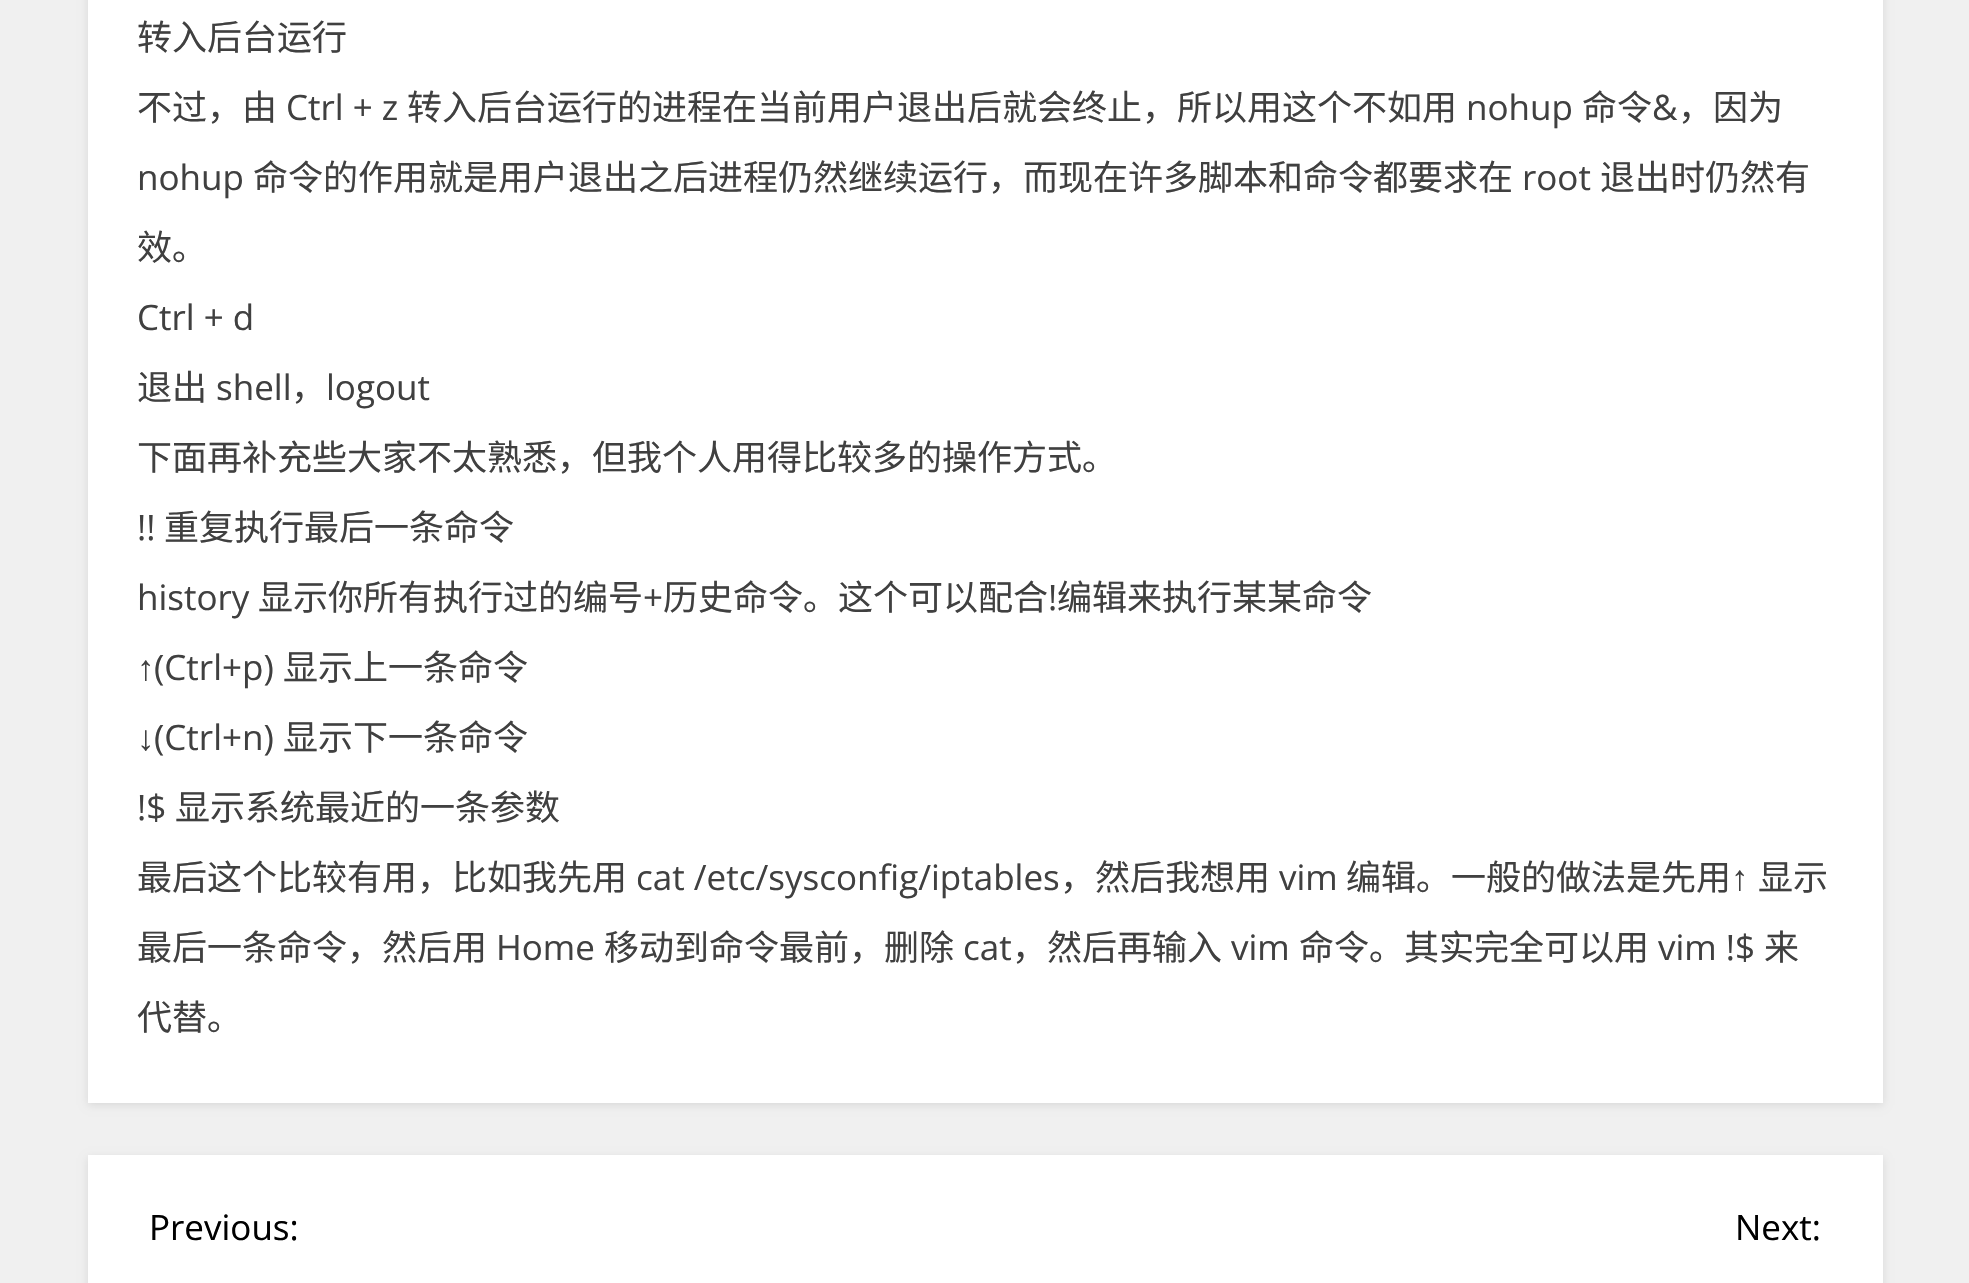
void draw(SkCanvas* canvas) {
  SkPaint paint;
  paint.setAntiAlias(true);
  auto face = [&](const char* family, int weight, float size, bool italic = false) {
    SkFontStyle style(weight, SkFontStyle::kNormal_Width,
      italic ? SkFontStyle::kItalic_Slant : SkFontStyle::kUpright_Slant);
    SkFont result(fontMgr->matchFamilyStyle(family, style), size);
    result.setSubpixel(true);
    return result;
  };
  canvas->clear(0xfff0f0f0);
  paint.setColor(0x1a000000);
  paint.setMaskFilter(SkMaskFilter::MakeBlur(kNormal_SkBlurStyle, 4));
  canvas->drawRect(SkRect::MakeXYWH(88, -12, 1795, 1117), paint);
  paint.setMaskFilter(nullptr);
  paint.setColor(0xffffffff);
  canvas->drawRect(SkRect::MakeXYWH(88, 0, 1795, 1103), paint);
  paint.setColor(0x1a000000);
  paint.setMaskFilter(SkMaskFilter::MakeBlur(kNormal_SkBlurStyle, 4));
  canvas->drawRect(SkRect::MakeXYWH(88, 1158, 1795, 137), paint);
  paint.setMaskFilter(nullptr);
  paint.setColor(0xffffffff);
  canvas->drawRect(SkRect::MakeXYWH(88, 1155, 1795, 128), paint);
  auto f0 = face("Noto Sans CJK SC", 400, 35);
  paint.setColor(0xff404040);
  canvas->drawString("转入后台运行", 137, 50, f0, paint);
  canvas->drawString("不过，由", 137, 120, f0, paint);
  auto f1 = face("Open Sans", 400, 35);
  canvas->drawString("Ctrl + z", 286, 120, f1, paint);
  canvas->drawString("转入后台运行的进程在当前用户退出后就会终止，所以用这个不如用", 407, 120, f0, paint);
  canvas->drawString("nohup", 1466, 120, f1, paint);
  canvas->drawString("命令", 1582, 120, f0, paint);
  canvas->drawString("&", 1652, 120, f1, paint);
  canvas->drawString("，因为", 1678, 120, f0, paint);
  canvas->drawString("nohup", 137, 190, f1, paint);
  canvas->drawString("命令的作用就是用户退出之后进程仍然继续运行，而现在许多脚本和命令都要求在", 253, 190, f0, paint);
  canvas->drawString("root", 1522, 190, f1, paint);
  canvas->drawString("退出时仍然有", 1600, 190, f0, paint);
  canvas->drawString("效。", 137, 260, f0, paint);
  canvas->drawString("Ctrl + d", 137, 330, f1, paint);
  canvas->drawString("退出", 137, 400, f0, paint);
  canvas->drawString("shell", 216, 400, f1, paint);
  canvas->drawString("，", 291, 400, f0, paint);
  canvas->drawString("logout", 326, 400, f1, paint);
  canvas->drawString("下面再补充些大家不太熟悉，但我个人用得比较多的操作方式。", 137, 470, f0, paint);
  canvas->drawString("!!", 137, 540, f1, paint);
  canvas->drawString("重复执行最后一条命令", 164, 540, f0, paint);
  canvas->drawString("history", 137, 610, f1, paint);
  canvas->drawString("显示你所有执行过的编号", 258, 610, f0, paint);
  canvas->drawString("+", 643, 610, f1, paint);
  canvas->drawString("历史命令。这个可以配合", 663, 610, f0, paint);
  canvas->drawString("!", 1048, 610, f1, paint);
  canvas->drawString("编辑来执行某某命令", 1057, 610, f0, paint);
  auto f2 = face("Liberation Sans", 400, 35);
  canvas->drawString("↑", 137, 680, f2, paint);
  canvas->drawString("(Ctrl+p)", 154, 680, f1, paint);
  canvas->drawString("显示上一条命令", 283, 680, f0, paint);
  canvas->drawString("↓", 137, 750, f2, paint);
  canvas->drawString("(Ctrl+n)", 154, 750, f1, paint);
  canvas->drawString("显示下一条命令", 283, 750, f0, paint);
  canvas->drawString("!$", 137, 820, f1, paint);
  canvas->drawString("显示系统最近的一条参数", 175, 820, f0, paint);
  canvas->drawString("最后这个比较有用，比如我先用", 137, 890, f0, paint);
  canvas->drawString("cat /etc/sysconfig/iptables", 636, 890, f1, paint);
  canvas->drawString("，然后我想用", 1060, 890, f0, paint);
  canvas->drawString("vim", 1279, 890, f1, paint);
  canvas->drawString("编辑。一般的做法是先用", 1346, 890, f0, paint);
  canvas->drawString("↑", 1731, 890, f2, paint);
  canvas->drawString("显示", 1758, 890, f0, paint);
  canvas->drawString("最后一条命令，然后用", 137, 960, f0, paint);
  canvas->drawString("Home", 496, 960, f1, paint);
  canvas->drawString("移动到命令最前，删除", 604, 960, f0, paint);
  canvas->drawString("cat", 963, 960, f1, paint);
  canvas->drawString("，然后再输入", 1012, 960, f0, paint);
  canvas->drawString("vim", 1231, 960, f1, paint);
  canvas->drawString("命令。其实完全可以用", 1299, 960, f0, paint);
  canvas->drawString("vim !$", 1658, 960, f1, paint);
  canvas->drawString("来", 1764, 960, f0, paint);
  canvas->drawString("代替。", 137, 1030, f0, paint);
  paint.setColor(0xff000000);
  canvas->drawString("Previous:", 149, 1240, f1, paint);
  canvas->drawString("Next:", 1735, 1240, f1, paint);
}
